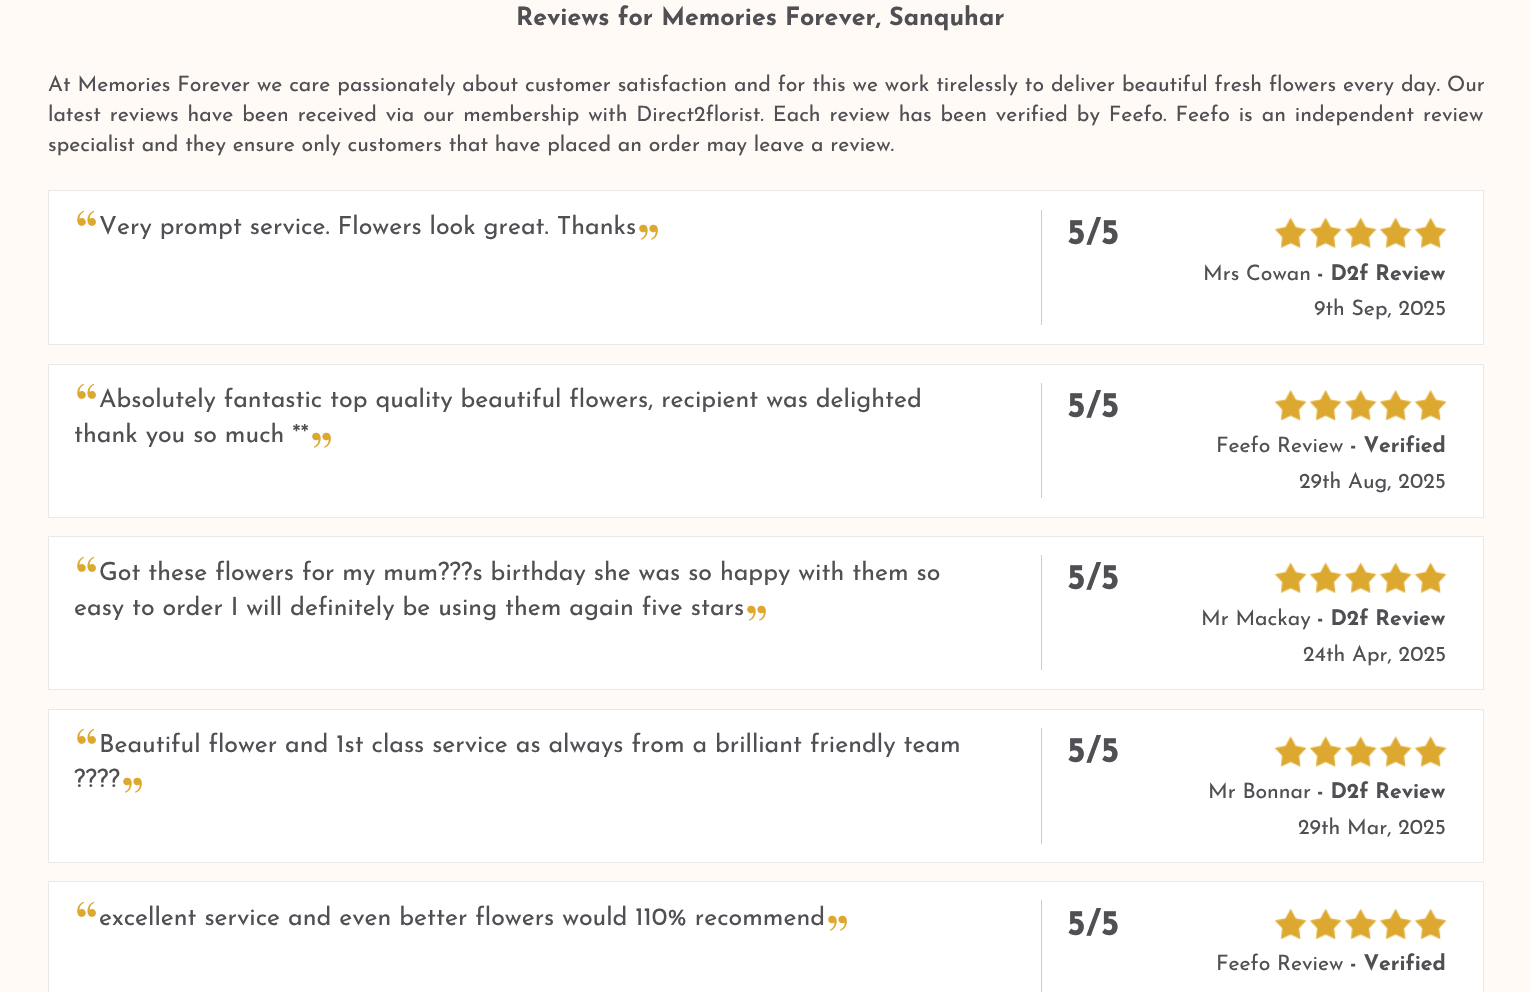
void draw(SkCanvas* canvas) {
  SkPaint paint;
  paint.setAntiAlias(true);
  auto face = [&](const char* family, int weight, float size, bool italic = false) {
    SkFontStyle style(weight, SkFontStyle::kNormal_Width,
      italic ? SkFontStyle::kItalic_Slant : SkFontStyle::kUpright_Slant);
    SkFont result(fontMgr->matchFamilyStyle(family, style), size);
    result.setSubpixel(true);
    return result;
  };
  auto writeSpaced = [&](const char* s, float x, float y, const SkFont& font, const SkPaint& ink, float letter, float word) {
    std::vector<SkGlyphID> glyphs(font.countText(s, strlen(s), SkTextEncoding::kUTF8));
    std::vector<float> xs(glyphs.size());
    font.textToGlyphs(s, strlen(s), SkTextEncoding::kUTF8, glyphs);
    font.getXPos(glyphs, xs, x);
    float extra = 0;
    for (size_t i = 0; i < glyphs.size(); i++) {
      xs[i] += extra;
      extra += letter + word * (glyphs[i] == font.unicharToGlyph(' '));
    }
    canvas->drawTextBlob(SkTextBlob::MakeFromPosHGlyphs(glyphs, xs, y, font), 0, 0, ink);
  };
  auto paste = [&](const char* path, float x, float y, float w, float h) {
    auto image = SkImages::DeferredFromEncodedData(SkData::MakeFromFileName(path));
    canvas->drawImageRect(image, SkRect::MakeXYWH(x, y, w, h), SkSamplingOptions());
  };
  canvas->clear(0xfffffaf6);
  paint.setColor(0xffffffff);
  canvas->drawRect(SkRect::MakeXYWH(48.5f, 190.5f, 1435, 154), paint);
  paint.setStroke(true);
  paint.setStrokeWidth(1);
  paint.setColor(0xffe9e9e9);
  canvas->drawRect(SkRect::MakeXYWH(48.5f, 190.5f, 1435, 154), paint);
  paint.setStroke(false);
  paint.setColor(0xffcccccc);
  canvas->drawRect(SkRect::MakeXYWH(1041, 210, 1, 115), paint);
  paste("img/1.png", 1275, 217, 172, 31);
  paste("img/2.png", 1275, 217, 172, 31);
  paint.setColor(0xffffffff);
  canvas->drawRect(SkRect::MakeXYWH(48.5f, 364.5f, 1435, 153), paint);
  paint.setStroke(true);
  paint.setColor(0xffe9e9e9);
  canvas->drawRect(SkRect::MakeXYWH(48.5f, 364.5f, 1435, 153), paint);
  paint.setStroke(false);
  paint.setColor(0xffcccccc);
  canvas->drawRect(SkRect::MakeXYWH(1041, 383, 1, 115), paint);
  paste("img/3.png", 1275, 390, 172, 31);
  paste("img/4.png", 1275, 390, 172, 31);
  paint.setColor(0xffffffff);
  canvas->drawRect(SkRect::MakeXYWH(48.5f, 536.5f, 1435, 153), paint);
  paint.setStroke(true);
  paint.setColor(0xffe9e9e9);
  canvas->drawRect(SkRect::MakeXYWH(48.5f, 536.5f, 1435, 153), paint);
  paint.setStroke(false);
  paint.setColor(0xffcccccc);
  canvas->drawRect(SkRect::MakeXYWH(1041, 555, 1, 115), paint);
  paste("img/1.png", 1275, 562, 172, 31);
  paste("img/2.png", 1275, 562, 172, 31);
  paint.setColor(0xffffffff);
  canvas->drawRect(SkRect::MakeXYWH(48.5f, 709.5f, 1435, 153), paint);
  paint.setStroke(true);
  paint.setColor(0xffe9e9e9);
  canvas->drawRect(SkRect::MakeXYWH(48.5f, 709.5f, 1435, 153), paint);
  paint.setStroke(false);
  paint.setColor(0xffcccccc);
  canvas->drawRect(SkRect::MakeXYWH(1041, 728, 1, 116), paint);
  paste("img/5.png", 1275, 736, 172, 31);
  paste("img/6.png", 1275, 736, 172, 31);
  paint.setColor(0xffffffff);
  canvas->drawRect(SkRect::MakeXYWH(48.5f, 881.5f, 1435, 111), paint);
  paint.setStroke(true);
  paint.setColor(0xffe9e9e9);
  canvas->drawRect(SkRect::MakeXYWH(48.5f, 881.5f, 1435, 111), paint);
  paint.setStroke(false);
  paint.setColor(0xffcccccc);
  canvas->drawRect(SkRect::MakeXYWH(1041, 900, 1, 92), paint);
  paste("img/7.png", 1275, 909, 172, 30);
  paste("img/8.png", 1275, 909, 172, 30);
  auto f0 = face("Josefin Sans", 700, 25);
  paint.setColor(0xff504f54);
  canvas->drawString("Reviews for Memories Forever, Sanquhar", 516, 25, f0, paint);
  auto f1 = face("Josefin Sans", 400, 21.25f);
  writeSpaced("At Memories Forever we care passionately about customer satisfaction and for this we work tirelessly to deliver beautiful fresh flowers every day. Our", 48, 91, f1, paint, 0, 0.2f);
  writeSpaced("latest reviews have been received via our membership with Direct2florist. Each review has been verified by Feefo. Feefo is an independent review", 48, 121, f1, paint, 0, 2.2f);
  canvas->drawString("specialist and they ensure only customers that have placed an order may leave a review.", 48, 151, f1, paint);
  auto f2 = face("Playfair Display", 400, 60);
  paint.setColor(0xffdda830);
  canvas->drawString("“", 74, 254, f2, paint);
  auto f3 = face("Josefin Sans", 400, 25);
  paint.setColor(0xff504f54);
  canvas->drawString("Very prompt service. Flowers look great. Thanks", 99, 234, f3, paint);
  paint.setColor(0xffdda830);
  canvas->drawString("”", 636, 268, f2, paint);
  auto f4 = face("Josefin Sans", 700, 36);
  paint.setColor(0xff504f54);
  canvas->drawString("5/5", 1067, 244, f4, paint);
  canvas->drawString("Mrs Cowan", 1203, 280, f1, paint);
  auto f5 = face("Josefin Sans", 700, 21.25f);
  canvas->drawString("- D2f Review", 1317, 280, f5, paint);
  canvas->drawString("9th Sep, 2025", 1314, 315, f1, paint);
  paint.setColor(0xffdda830);
  canvas->drawString("“", 74, 427, f2, paint);
  paint.setColor(0xff504f54);
  canvas->drawString("Absolutely fantastic top quality beautiful flowers, recipient was delighted", 99, 407, f3, paint);
  canvas->drawString("thank you so much **", 74, 442, f3, paint);
  paint.setColor(0xffdda830);
  canvas->drawString("”", 309, 476, f2, paint);
  paint.setColor(0xff504f54);
  canvas->drawString("5/5", 1067, 417, f4, paint);
  canvas->drawString("Feefo Review", 1216, 452, f1, paint);
  canvas->drawString("- Verified", 1350, 452, f5, paint);
  canvas->drawString("29th Aug, 2025", 1299, 488, f1, paint);
  paint.setColor(0xffdda830);
  canvas->drawString("“", 74, 600, f2, paint);
  paint.setColor(0xff504f54);
  canvas->drawString("Got these flowers for my mum?\077?s birthday she was so happy with them so", 99, 580, f3, paint);
  canvas->drawString("easy to order I will definitely be using them again five stars", 74, 615, f3, paint);
  paint.setColor(0xffdda830);
  canvas->drawString("”", 744, 649, f2, paint);
  paint.setColor(0xff504f54);
  canvas->drawString("5/5", 1067, 589, f4, paint);
  canvas->drawString("Mr Mackay", 1201, 625, f1, paint);
  canvas->drawString("- D2f Review", 1317, 625, f5, paint);
  canvas->drawString("24th Apr, 2025", 1303, 661, f1, paint);
  paint.setColor(0xffdda830);
  canvas->drawString("“", 74, 772, f2, paint);
  paint.setColor(0xff504f54);
  canvas->drawString("Beautiful flower and 1st class service as always from a brilliant friendly team", 99, 752, f3, paint);
  canvas->drawString("?\077?\077", 74, 787, f3, paint);
  paint.setColor(0xffdda830);
  canvas->drawString("”", 120, 821, f2, paint);
  paint.setColor(0xff504f54);
  canvas->drawString("5/5", 1067, 762, f4, paint);
  canvas->drawString("Mr Bonnar", 1208, 798, f1, paint);
  canvas->drawString("- D2f Review", 1317, 798, f5, paint);
  canvas->drawString("29th Mar, 2025", 1298, 834, f1, paint);
  paint.setColor(0xffdda830);
  canvas->drawString("“", 74, 945, f2, paint);
  paint.setColor(0xff504f54);
  canvas->drawString("excellent service and even better flowers would 110% recommend", 99, 925, f3, paint);
  paint.setColor(0xffdda830);
  canvas->drawString("”", 825, 959, f2, paint);
  paint.setColor(0xff504f54);
  canvas->drawString("5/5", 1067, 935, f4, paint);
  canvas->drawString("Feefo Review", 1216, 970, f1, paint);
  canvas->drawString("- Verified", 1350, 970, f5, paint);
}
